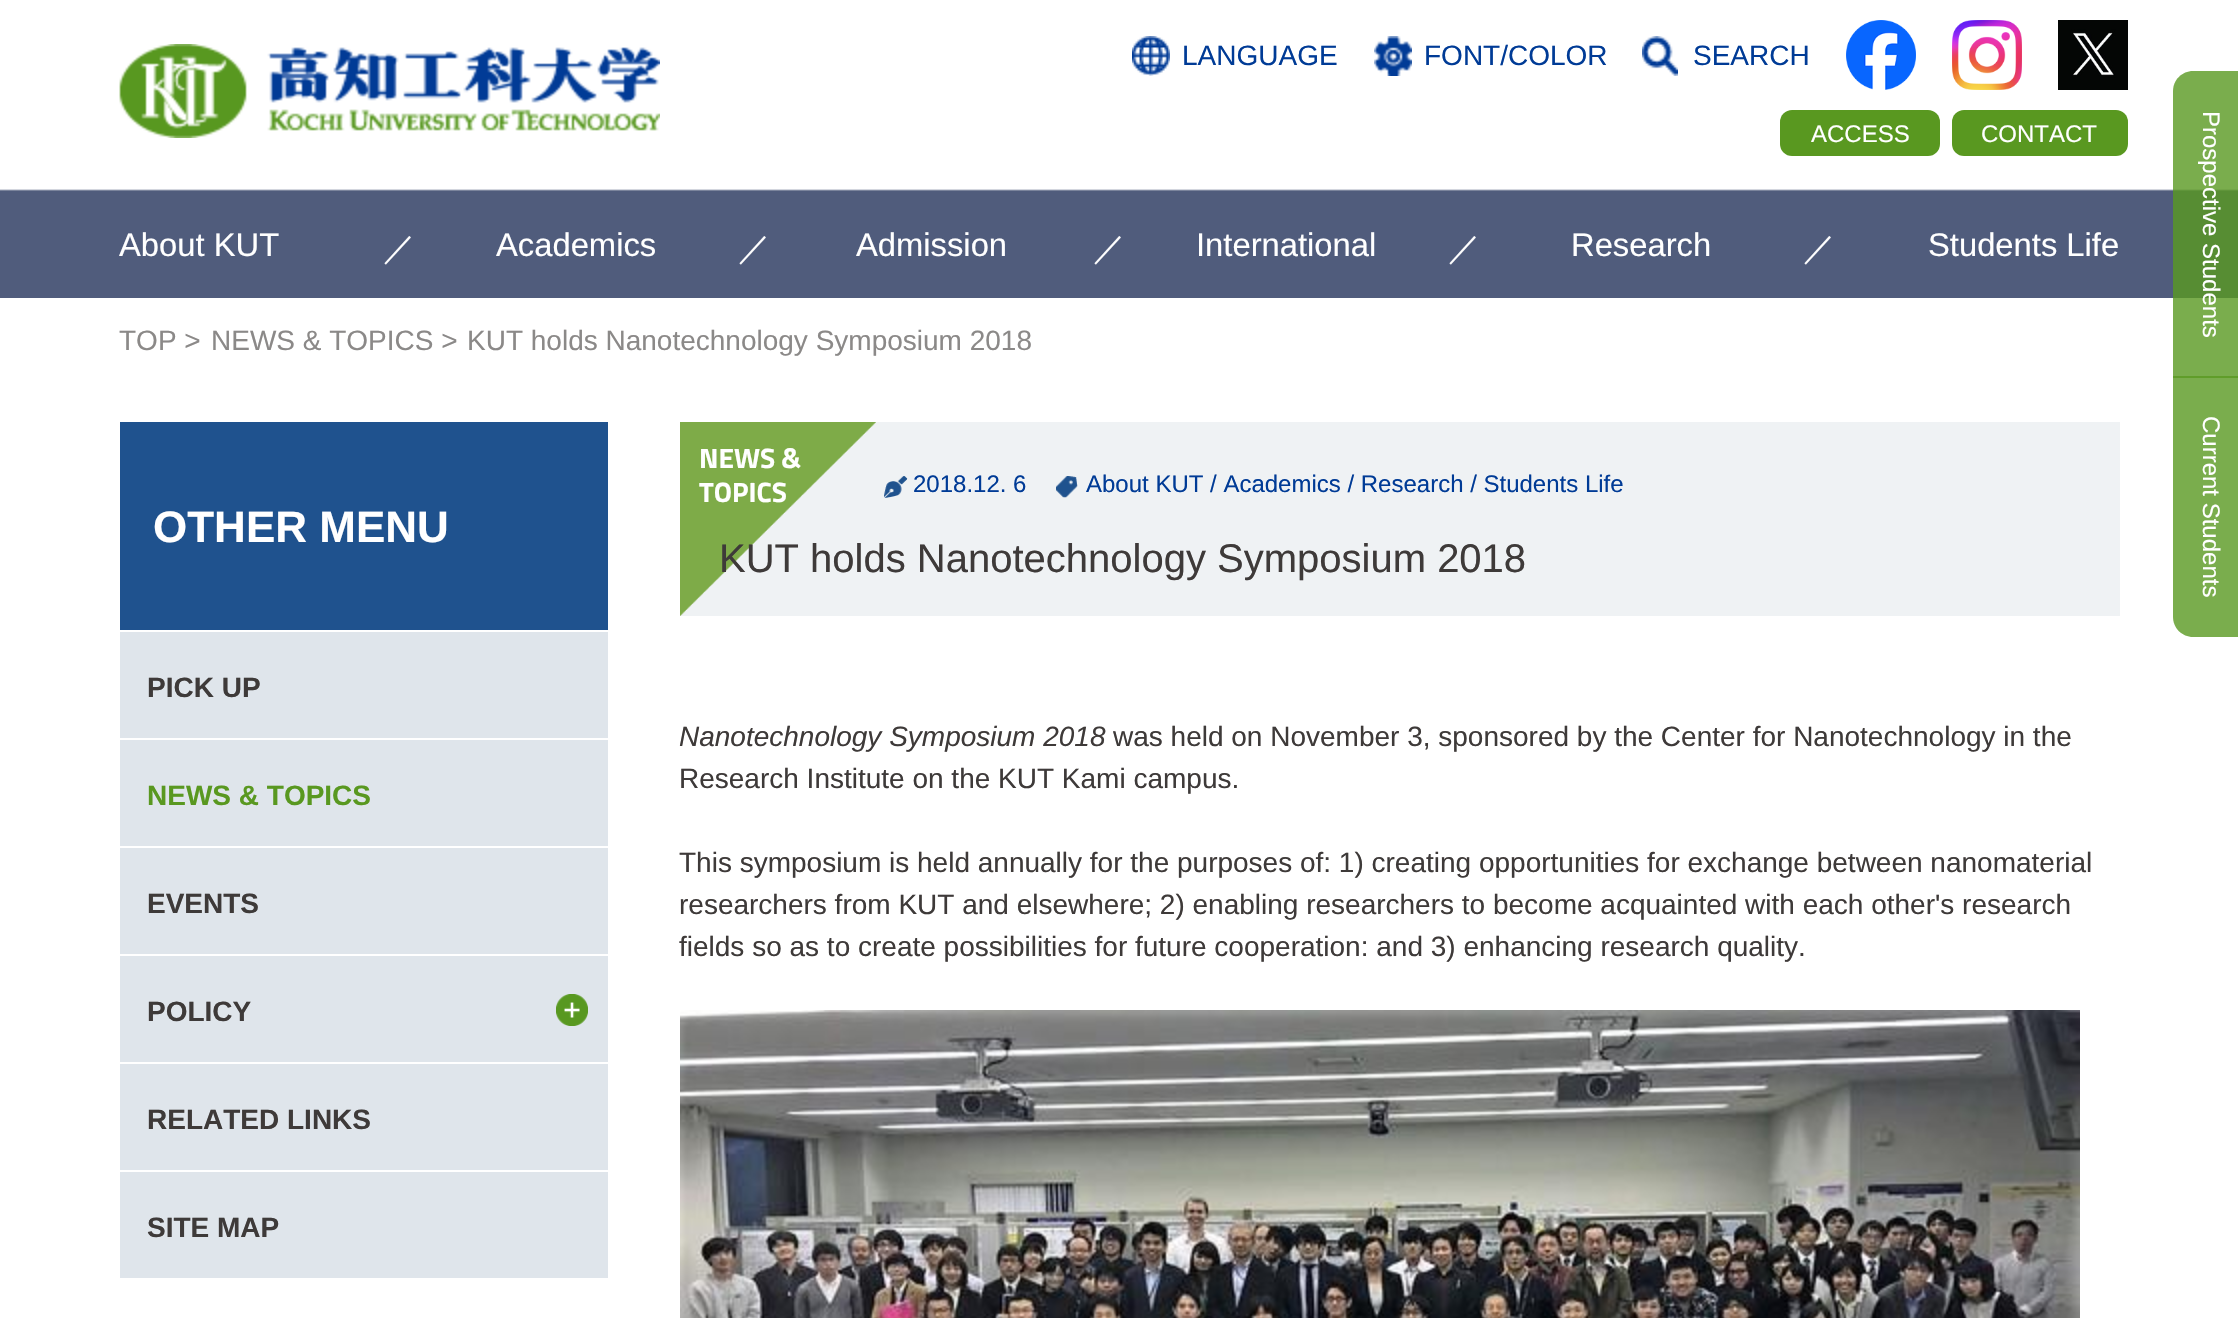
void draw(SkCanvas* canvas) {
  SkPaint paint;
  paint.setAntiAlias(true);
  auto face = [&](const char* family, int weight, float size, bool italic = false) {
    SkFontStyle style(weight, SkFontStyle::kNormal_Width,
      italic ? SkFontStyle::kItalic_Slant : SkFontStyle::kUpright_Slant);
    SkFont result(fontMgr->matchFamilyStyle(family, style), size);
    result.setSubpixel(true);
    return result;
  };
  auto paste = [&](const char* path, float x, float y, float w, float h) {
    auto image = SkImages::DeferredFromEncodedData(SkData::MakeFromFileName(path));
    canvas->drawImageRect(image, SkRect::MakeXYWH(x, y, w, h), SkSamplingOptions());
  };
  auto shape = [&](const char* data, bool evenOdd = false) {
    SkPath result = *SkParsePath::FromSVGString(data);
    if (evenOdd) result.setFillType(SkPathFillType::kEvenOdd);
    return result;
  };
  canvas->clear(0xffffffff);
  paste("img/1.png", 0, 189, 2238, 109);
  paste("img/2.png", 119, 44, 541, 94);
  paste("img/3.png", 1132, 36, 38, 40);
  paste("img/4.png", 1374, 36, 38, 40);
  paste("img/5.png", 1642, 36, 36, 40);
  paste("img/6.png", 1846, 20, 70, 70);
  paste("img/7.png", 1952, 20, 70, 70);
  paste("img/8.png", 2058, 20, 70, 70);
  paint.setColor(0xff599820);
  canvas->drawRoundRect(SkRect::MakeXYWH(1780, 110, 160, 46), 12, 12, paint);
  canvas->drawRoundRect(SkRect::MakeXYWH(1952, 110, 176, 46), 12, 12, paint);
  paint.setColor(0xcc599820);
  canvas->drawPath(shape("M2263 71V378H2173V91C2173 80 2182 71 2193 71Z"), paint);
  canvas->drawPath(shape("M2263 376V637H2193C2182 637 2173 628 2173 617V376Z"), paint);
  {
    const struct { float x, y, w, h; SkColor color; } items[] = {
      {120, 422, 488, 208, 0xff1f528e},
      {120, 632, 488, 106, 0xffdfe5eb},
      {120, 740, 488, 106, 0xffdfe5eb},
      {120, 848, 488, 106, 0xffdfe5eb},
      {120, 956, 488, 106, 0xffdfe5eb},
    };
    for (auto [x, y, w, h, color] : items) {
      paint.setColor(color);
      canvas->drawRect(SkRect::MakeXYWH(x, y, w, h), paint);
    }
  }
  paste("img/9.png", 556, 994, 32, 32);
  {
    const struct { float x, y, w, h; SkColor color; } items[] = {
      {120, 1064, 488, 106, 0xffdfe5eb},
      {120, 1172, 488, 106, 0xffdfe5eb},
      {680, 422, 1440, 194, 0xffeff2f4},
    };
    for (auto [x, y, w, h, color] : items) {
      paint.setColor(color);
      canvas->drawRect(SkRect::MakeXYWH(x, y, w, h), paint);
    }
  }
  paste("img/10.png", 680, 422, 196, 194);
  paste("img/11.png", 884, 476, 24, 22);
  paste("img/12.png", 1056, 476, 22, 22);
  paste("img/13.png", 680, 1010, 1400, 308);
  auto f0 = face("Liberation Sans", 400, 28);
  paint.setColor(0xff003b96);
  {
    const struct { const char* s; float x, y; } items[] = {
      {"LANGUAGE", 1182, 65},
      {"FONT/COLOR", 1424, 65},
      {"SEARCH", 1693, 65},
    };
    for (auto [s, x, y] : items) {
      canvas->drawString(s, x, y, f0, paint);
    }
  }
  auto f1 = face("Liberation Sans", 400, 24);
  paint.setColor(0xffffffff);
  canvas->drawString("ACCESS", 1811, 142, f1, paint);
  canvas->drawString("CONTACT", 1981, 142, f1, paint);
  auto f2 = face("Liberation Sans", 400, 32.75f);
  canvas->drawString("About KUT", 119, 256, f2, paint);
  auto f3 = face("WenQuanYi Zen Hei", 500, 32.75f);
  canvas->drawString("／", 383, 259, f3, paint);
  canvas->drawString("Academics", 496, 256, f2, paint);
  canvas->drawString("／", 738, 259, f3, paint);
  canvas->drawString("Admission", 856, 256, f2, paint);
  canvas->drawString("／", 1093, 259, f3, paint);
  canvas->drawString("International", 1196, 256, f2, paint);
  canvas->drawString("／", 1448, 259, f3, paint);
  canvas->drawString("Research", 1571, 256, f2, paint);
  canvas->drawString("／", 1803, 259, f3, paint);
  canvas->drawString("Students Life", 1928, 256, f2, paint);
  canvas->save();
  canvas->rotate(90, 2203, 111);
  canvas->drawString("Prospective Students", 2203, 111, f1, paint);
  canvas->restore();
  canvas->save();
  canvas->rotate(90, 2203, 416);
  canvas->drawString("Current Students", 2203, 416, f1, paint);
  canvas->restore();
  paint.setColor(0xff8b8988);
  {
    const struct { const char* s; float x, y; } items[] = {
      {"TOP >", 119, 350},
      {"NEWS & TOPICS >", 211, 350},
      {"KUT holds Nanotechnology Symposium 2018", 467, 350},
    };
    for (auto [s, x, y] : items) {
      canvas->drawString(s, x, y, f0, paint);
    }
  }
  auto f4 = face("Liberation Sans", 700, 44);
  paint.setColor(0xffffffff);
  canvas->drawString("OTHER MENU", 153, 542, f4, paint);
  auto f5 = face("Liberation Sans", 700, 28);
  paint.setColor(0xff3e3a39);
  canvas->drawString("PICK UP", 147, 697, f5, paint);
  paint.setColor(0xff599820);
  canvas->drawString("NEWS & TOPICS", 147, 805, f5, paint);
  paint.setColor(0xff3e3a39);
  {
    const struct { const char* s; float x, y; } items[] = {
      {"EVENTS", 147, 913},
      {"POLICY", 147, 1021},
      {"RELATED LINKS", 147, 1129},
      {"SITE MAP", 147, 1237},
    };
    for (auto [s, x, y] : items) {
      canvas->drawString(s, x, y, f5, paint);
    }
  }
  auto f6 = face("Titillium Web", 700, 28);
  paint.setColor(0xffffffff);
  canvas->drawString("NEWS &", 699, 468, f6, paint);
  canvas->drawString("TOPICS", 699, 502, f6, paint);
  paint.setColor(0xff003b96);
  canvas->drawString("2018.12. 6", 913, 492, f1, paint);
  canvas->drawString("About KUT / Academics / Research / Students Life", 1086, 492, f1, paint);
  auto f7 = face("Liberation Sans", 400, 40);
  paint.setColor(0xff3e3a39);
  canvas->drawString("KUT holds Nanotechnology Symposium 2018", 719, 572, f7, paint);
  auto f8 = face("Liberation Sans", 400, 28, true);
  canvas->drawString("Nanotechnology Symposium 2018", 679, 746, f8, paint);
  {
    const struct { const char* s; float x, y; } items[] = {
      {"was held on November 3, sponsored by the Center for Nanotechnology in the", 1113, 746},
      {"Research Institute on the KUT Kami campus.", 679, 788},
      {"This symposium is held annually for the purposes of: 1) creating opportunities for exchange between nanomaterial", 679, 872},
      {"researchers from KUT and elsewhere; 2) enabling researchers to become acquainted with each other's research", 679, 914},
      {"fields so as to create possibilities for future cooperation: and 3) enhancing research quality.", 679, 956},
    };
    for (auto [s, x, y] : items) {
      canvas->drawString(s, x, y, f0, paint);
    }
  }
}
